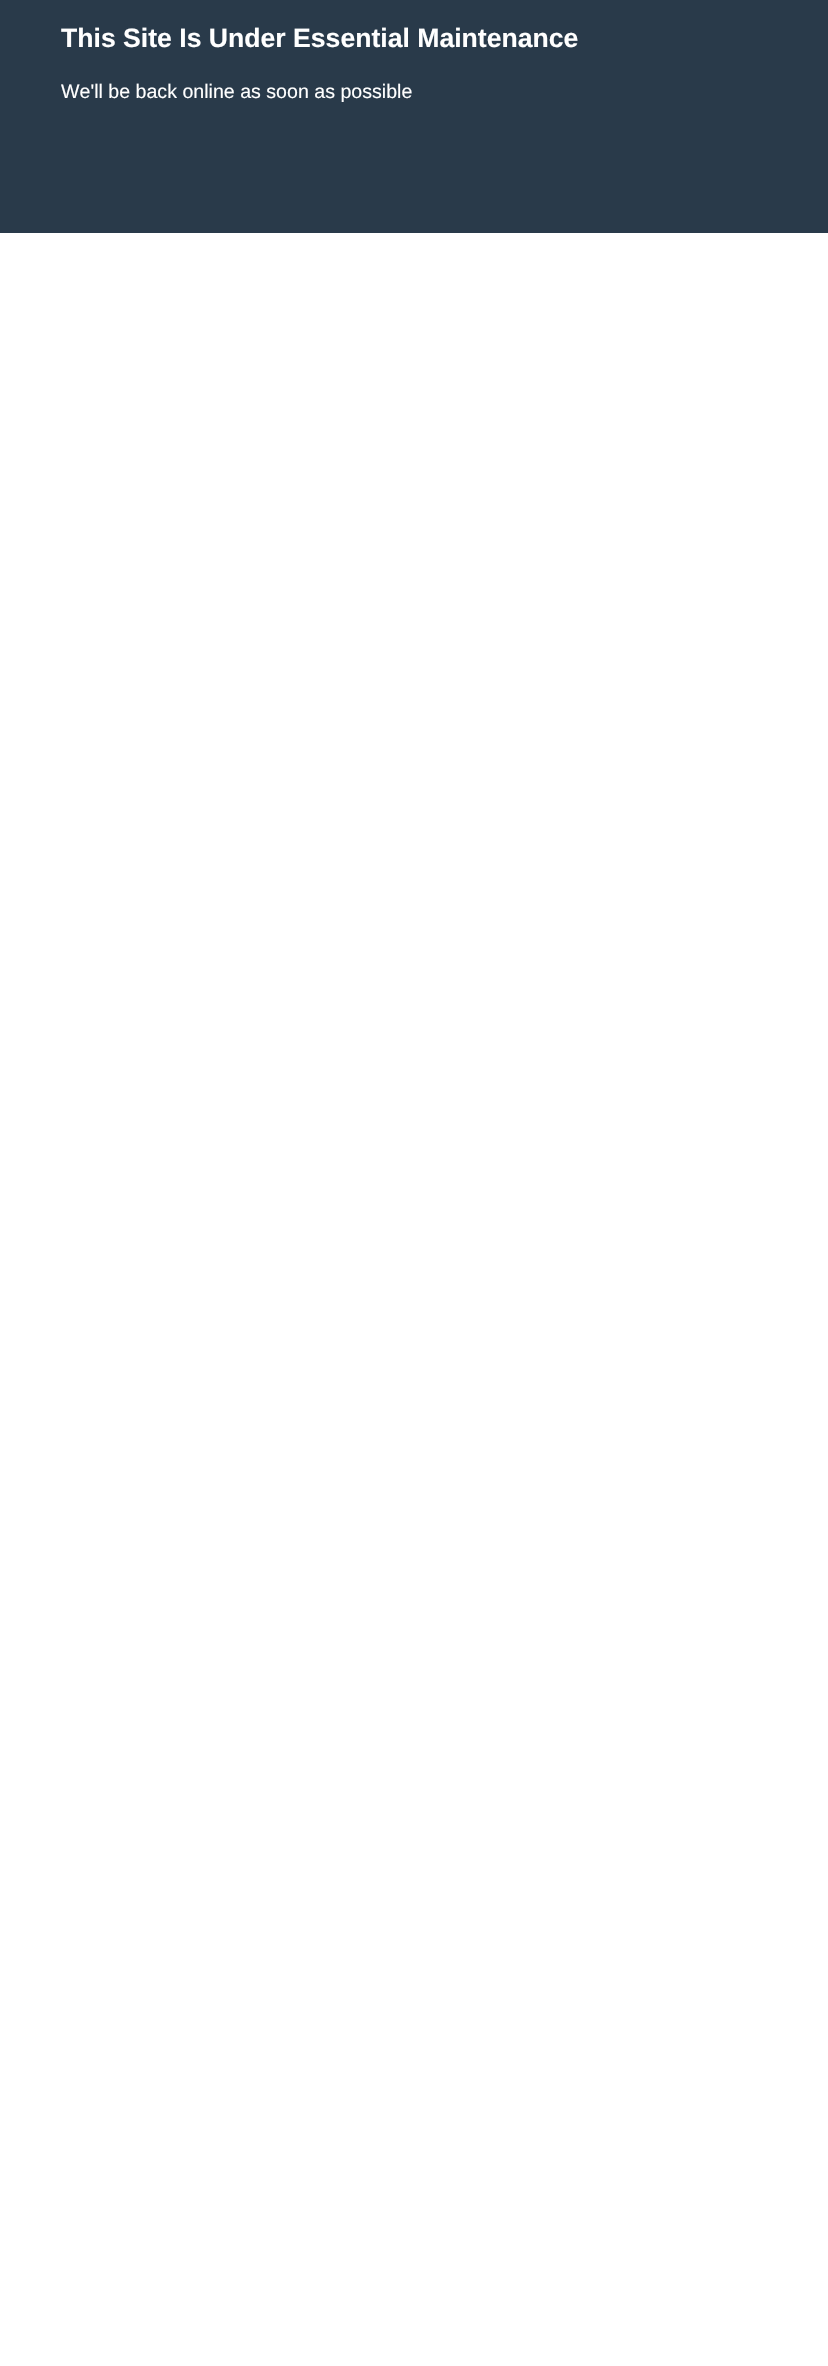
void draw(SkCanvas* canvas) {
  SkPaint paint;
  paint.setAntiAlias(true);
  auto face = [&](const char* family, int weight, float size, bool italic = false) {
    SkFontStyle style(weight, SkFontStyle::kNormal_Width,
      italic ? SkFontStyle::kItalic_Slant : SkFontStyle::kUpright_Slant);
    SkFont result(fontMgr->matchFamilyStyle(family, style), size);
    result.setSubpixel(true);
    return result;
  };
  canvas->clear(0xffffffff);
  paint.setColor(0xff293a4a);
  canvas->drawRect(SkRect::MakeXYWH(0, 0, 828, 233), paint);
  auto f0 = face("Liberation Sans", 700, 26.6f);
  paint.setColor(0xffffffff);
  canvas->drawString("This Site Is Under Essential Maintenance", 61, 47, f0, paint);
  auto f1 = face("Liberation Sans", 400, 19.6f);
  canvas->drawString("We'll be back online as soon as possible", 61, 98, f1, paint);
}
